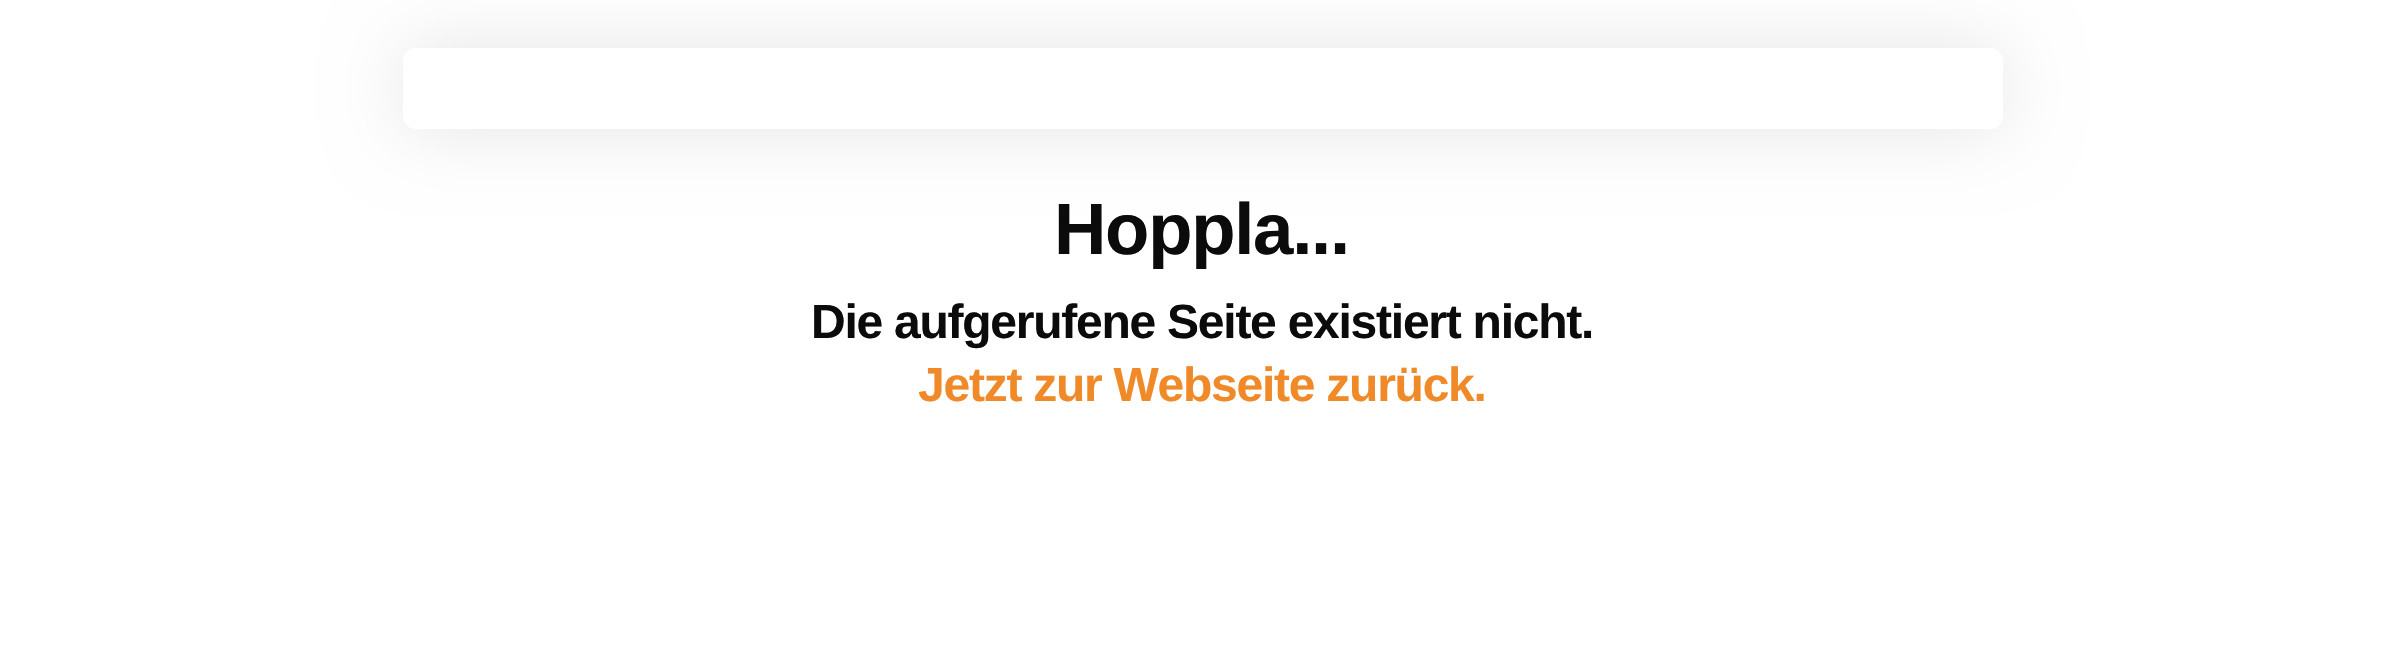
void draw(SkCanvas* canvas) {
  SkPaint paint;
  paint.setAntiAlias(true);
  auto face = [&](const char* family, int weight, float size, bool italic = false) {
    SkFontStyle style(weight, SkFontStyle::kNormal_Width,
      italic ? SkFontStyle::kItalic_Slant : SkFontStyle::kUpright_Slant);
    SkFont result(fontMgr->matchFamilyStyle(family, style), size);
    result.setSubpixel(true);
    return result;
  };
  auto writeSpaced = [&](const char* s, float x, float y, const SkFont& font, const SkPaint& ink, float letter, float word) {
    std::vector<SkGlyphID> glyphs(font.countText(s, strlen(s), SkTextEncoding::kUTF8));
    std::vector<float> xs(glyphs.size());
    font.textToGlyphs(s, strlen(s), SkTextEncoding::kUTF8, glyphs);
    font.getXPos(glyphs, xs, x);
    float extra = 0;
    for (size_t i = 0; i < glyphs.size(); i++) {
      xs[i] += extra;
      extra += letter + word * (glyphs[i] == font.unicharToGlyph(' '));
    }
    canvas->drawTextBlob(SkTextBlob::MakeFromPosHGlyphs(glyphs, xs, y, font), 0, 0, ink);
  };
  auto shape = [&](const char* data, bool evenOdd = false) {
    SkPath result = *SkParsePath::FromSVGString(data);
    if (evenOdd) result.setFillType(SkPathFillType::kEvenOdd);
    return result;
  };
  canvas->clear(0xffffffff);
  canvas->save();
  canvas->clipPath(shape("M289 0H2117V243H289ZM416 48H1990C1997 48 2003 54 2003 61V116C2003 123 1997 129 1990 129H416C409 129 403 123 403 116V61C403 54 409 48 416 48Z", true), true);
  paint.setColor(0x1a000000);
  paint.setMaskFilter(SkMaskFilter::MakeBlur(kNormal_SkBlurStyle, 37.5f));
  canvas->drawRoundRect(SkRect::MakeXYWH(403, 48, 1600, 81), 13, 13, paint);
  paint.setMaskFilter(nullptr);
  canvas->restore();
  paint.setColor(0xf2ffffff);
  canvas->drawRoundRect(SkRect::MakeXYWH(403, 48, 1600, 81), 13, 13, paint);
  auto f0 = face("Liberation Sans", 700, 72.5f);
  paint.setColor(0xff0b0b0b);
  writeSpaced("Hoppla...", 1054, 254, f0, paint, -1.25f, 0);
  auto f1 = face("Liberation Sans", 700, 48);
  writeSpaced("Die aufgerufene Seite existiert nicht.", 811, 338, f1, paint, -1.25f, 0);
  paint.setColor(0xfff08a28);
  writeSpaced("Jetzt zur Webseite zurück.", 918, 401, f1, paint, -1.25f, 0);
}
